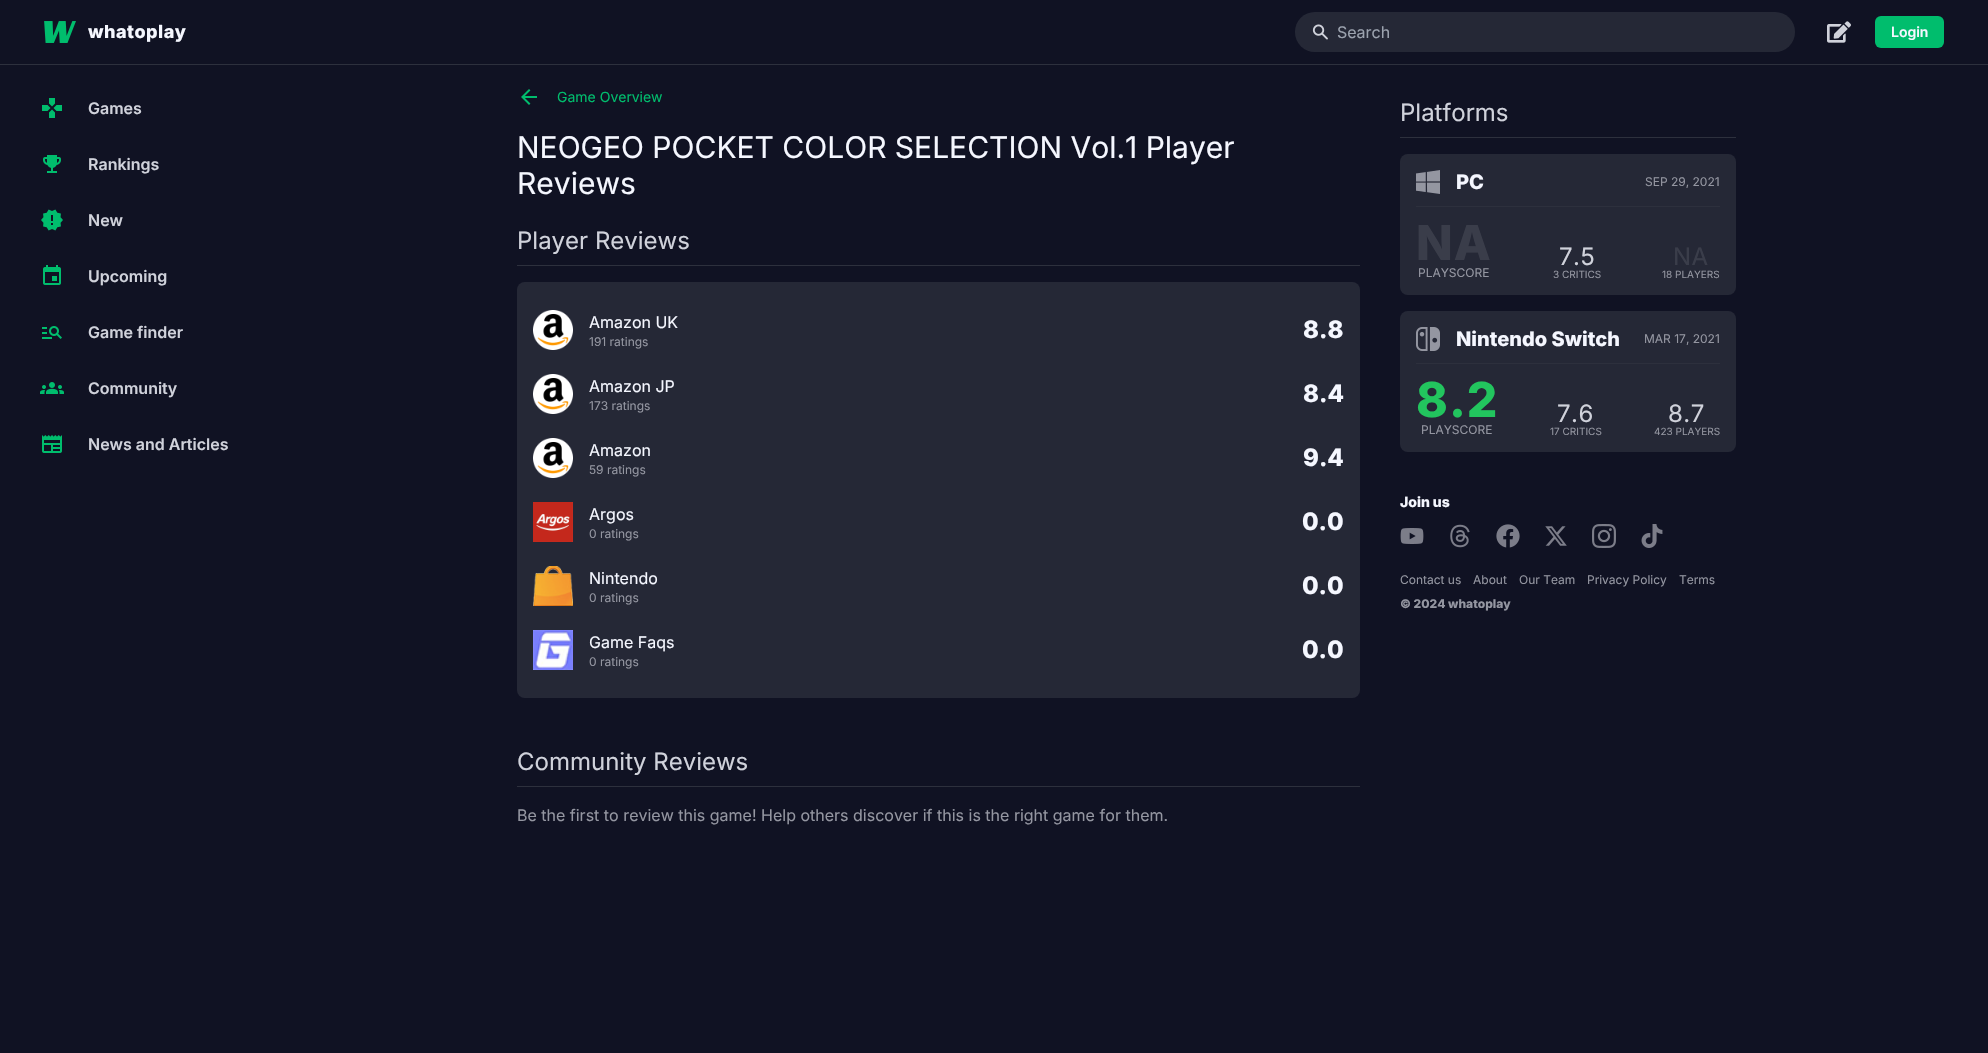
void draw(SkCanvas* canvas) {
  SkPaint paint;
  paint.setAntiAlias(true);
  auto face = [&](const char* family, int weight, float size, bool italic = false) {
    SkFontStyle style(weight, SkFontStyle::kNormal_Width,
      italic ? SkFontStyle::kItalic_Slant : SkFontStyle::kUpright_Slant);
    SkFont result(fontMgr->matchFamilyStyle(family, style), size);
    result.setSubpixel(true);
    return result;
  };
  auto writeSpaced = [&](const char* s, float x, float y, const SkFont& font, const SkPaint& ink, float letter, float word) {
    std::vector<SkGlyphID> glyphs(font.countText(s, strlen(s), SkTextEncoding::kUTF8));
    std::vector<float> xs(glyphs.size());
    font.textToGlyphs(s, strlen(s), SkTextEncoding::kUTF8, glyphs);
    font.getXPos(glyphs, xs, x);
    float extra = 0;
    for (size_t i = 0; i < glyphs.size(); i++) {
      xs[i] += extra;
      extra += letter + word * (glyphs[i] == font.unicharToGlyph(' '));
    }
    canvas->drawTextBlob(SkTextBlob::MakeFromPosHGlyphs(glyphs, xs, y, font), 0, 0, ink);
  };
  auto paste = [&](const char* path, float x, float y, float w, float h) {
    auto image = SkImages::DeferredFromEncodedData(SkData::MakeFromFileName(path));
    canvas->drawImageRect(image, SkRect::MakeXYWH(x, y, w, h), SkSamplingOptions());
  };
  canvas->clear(0xff101223);
  paint.setColor(0xff2d303d);
  canvas->drawRect(SkRect::MakeXYWH(0, 64, 1988, 1), paint);
  paste("img/1.png", 44, 21, 32, 22);
  paint.setColor(0xff252836);
  canvas->drawRoundRect(SkRect::MakeXYWH(1295, 12, 500, 40), 20, 20, paint);
  paste("img/2.png", 1312, 24, 16, 16);
  paste("img/3.png", 1827, 21, 24, 22);
  paint.setColor(0xff00bd6d);
  canvas->drawRoundRect(SkRect::MakeXYWH(1875, 16, 69, 32), 6, 6, paint);
  paste("img/4.png", 42, 98, 20, 20);
  paste("img/5.png", 43, 155, 18, 18);
  paste("img/6.png", 41, 209, 22, 22);
  paste("img/7.png", 43, 265, 18, 20);
  paste("img/8.png", 42, 326, 20, 13);
  paste("img/9.png", 40, 382, 24, 12);
  paste("img/10.png", 42, 435, 20, 18);
  paste("img/11.png", 521, 89, 16, 16);
  paint.setColor(0xff2d303d);
  canvas->drawRect(SkRect::MakeXYWH(517, 265, 843, 1), paint);
  paint.setColor(0xff252836);
  canvas->drawRoundRect(SkRect::MakeXYWH(517, 282, 843, 416), 8, 8, paint);
  paste("img/12.png", 533, 310, 40, 40);
  paste("img/12.png", 533, 374, 40, 40);
  paste("img/12.png", 533, 438, 40, 40);
  paste("img/13.png", 533, 502, 40, 40);
  paste("img/14.png", 533, 566, 40, 40);
  paste("img/15.png", 533, 630, 40, 40);
  paint.setColor(0xff2d303d);
  canvas->drawRect(SkRect::MakeXYWH(517, 786, 843, 1), paint);
  canvas->drawRect(SkRect::MakeXYWH(1400, 137, 336, 1), paint);
  paint.setColor(0xff252836);
  canvas->drawRoundRect(SkRect::MakeXYWH(1400, 154, 336, 141), 8, 8, paint);
  paste("img/16.png", 1416, 170, 24, 24);
  paint.setColor(0xff2d303d);
  canvas->drawRect(SkRect::MakeXYWH(1416, 206, 304, 1), paint);
  paint.setColor(0xff252836);
  canvas->drawRoundRect(SkRect::MakeXYWH(1400, 311, 336, 141), 8, 8, paint);
  paste("img/17.png", 1416, 327, 24, 24);
  paint.setColor(0xff2d303d);
  canvas->drawRect(SkRect::MakeXYWH(1416, 363, 304, 1), paint);
  paste("img/18.png", 1400, 528, 24, 16);
  paste("img/19.png", 1450, 524, 20, 24);
  paste("img/20.png", 1496, 524, 24, 24);
  paste("img/21.png", 1545, 526, 22, 20);
  paste("img/22.png", 1592, 524, 24, 24);
  paste("img/23.png", 1641, 524, 22, 24);
  auto f0 = face("Inter", 800, 18);
  paint.setColor(0xfff5f7ff);
  writeSpaced("whatoplay", 88, 38, f0, paint, 0.5f, 0);
  auto f1 = face("Inter", 400, 16);
  paint.setColor(0xff9ca3af);
  canvas->drawString("Search", 1337, 38, f1, paint);
  auto f2 = face("Inter", 600, 14);
  paint.setColor(0xfff5f7ff);
  canvas->drawString("Login", 1891, 37, f2, paint);
  auto f3 = face("Inter", 600, 16);
  paint.setColor(0xffd0d2db);
  {
    const struct { const char* s; float x, y; } items[] = {
      {"Games", 88, 114},
      {"Rankings", 88, 170},
      {"New", 88, 226},
      {"Upcoming", 88, 282},
      {"Game finder", 88, 338},
      {"Community", 88, 394},
      {"News and Articles", 88, 450},
    };
    for (auto [s, x, y] : items) {
      canvas->drawString(s, x, y, f3, paint);
    }
  }
  auto f4 = face("Inter", 400, 14);
  paint.setColor(0xff00bd6d);
  canvas->drawString("Game Overview", 557, 102, f4, paint);
  auto f5 = face("Inter", 400, 30);
  paint.setColor(0xfff5f7ff);
  canvas->drawString("NEOGEO POCKET COLOR SELECTION Vol.1 Player", 517, 158, f5, paint);
  canvas->drawString("Reviews", 517, 194, f5, paint);
  auto f6 = face("Inter", 400, 24);
  paint.setColor(0xffd0d2db);
  canvas->drawString("Player Reviews", 517, 249, f6, paint);
  paint.setColor(0xfff5f7ff);
  canvas->drawString("Amazon UK", 589, 328, f1, paint);
  auto f7 = face("Inter", 400, 12);
  paint.setColor(0xff9496a1);
  canvas->drawString("191 ratings", 589, 346, f7, paint);
  auto f8 = face("Inter", 800, 24);
  paint.setColor(0xfff5f7ff);
  canvas->drawString("8.8", 1303, 338, f8, paint);
  canvas->drawString("Amazon JP", 589, 392, f1, paint);
  paint.setColor(0xff9496a1);
  canvas->drawString("173 ratings", 589, 410, f7, paint);
  paint.setColor(0xfff5f7ff);
  canvas->drawString("8.4", 1303, 402, f8, paint);
  canvas->drawString("Amazon", 589, 456, f1, paint);
  paint.setColor(0xff9496a1);
  canvas->drawString("59 ratings", 589, 474, f7, paint);
  paint.setColor(0xfff5f7ff);
  canvas->drawString("9.4", 1303, 466, f8, paint);
  canvas->drawString("Argos", 589, 520, f1, paint);
  paint.setColor(0xff9496a1);
  canvas->drawString("0 ratings", 589, 538, f7, paint);
  paint.setColor(0xfff5f7ff);
  canvas->drawString("0.0", 1302, 530, f8, paint);
  canvas->drawString("Nintendo", 589, 584, f1, paint);
  paint.setColor(0xff9496a1);
  canvas->drawString("0 ratings", 589, 602, f7, paint);
  paint.setColor(0xfff5f7ff);
  canvas->drawString("0.0", 1302, 594, f8, paint);
  canvas->drawString("Game Faqs", 589, 648, f1, paint);
  paint.setColor(0xff9496a1);
  canvas->drawString("0 ratings", 589, 666, f7, paint);
  paint.setColor(0xfff5f7ff);
  canvas->drawString("0.0", 1302, 658, f8, paint);
  paint.setColor(0xffd0d2db);
  canvas->drawString("Community Reviews", 517, 770, f6, paint);
  paint.setColor(0xff9496a1);
  canvas->drawString("Be the first to review this game! Help others discover if this is the right game for them.", 517, 821, f1, paint);
  paint.setColor(0xffd0d2db);
  canvas->drawString("Platforms", 1400, 121, f6, paint);
  auto f9 = face("Inter", 800, 20);
  paint.setColor(0xfff5f7ff);
  canvas->drawString("PC", 1456, 189, f9, paint);
  paint.setColor(0xff9496a1);
  canvas->drawString("SEP 29, 2021", 1645, 186, f7, paint);
  auto f10 = face("Inter", 800, 48);
  paint.setColor(0xff3a3d4a);
  writeSpaced("NA", 1416, 260, f10, paint, 1, 0);
  paint.setColor(0xff9496a1);
  canvas->drawString("PLAYSCORE", 1418, 277, f7, paint);
  paint.setColor(0xffd0d2db);
  writeSpaced("7.5", 1559, 265, f6, paint, 0.5f, 0);
  auto f11 = face("Inter", 400, 10);
  paint.setColor(0xff9496a1);
  canvas->drawString("3 CRITICS", 1553, 278, f11, paint);
  paint.setColor(0xff3a3d4a);
  writeSpaced("NA", 1673, 265, f6, paint, 0.5f, 0);
  paint.setColor(0xff9496a1);
  canvas->drawString("18 PLAYERS", 1662, 278, f11, paint);
  paint.setColor(0xfff5f7ff);
  canvas->drawString("Nintendo Switch", 1456, 346, f9, paint);
  paint.setColor(0xff9496a1);
  canvas->drawString("MAR 17, 2021", 1644, 343, f7, paint);
  paint.setColor(0xff22c55e);
  writeSpaced("8.2", 1416, 417, f10, paint, 1, 0);
  paint.setColor(0xff9496a1);
  canvas->drawString("PLAYSCORE", 1421, 434, f7, paint);
  paint.setColor(0xffd0d2db);
  writeSpaced("7.6", 1557, 422, f6, paint, 0.5f, 0);
  paint.setColor(0xff9496a1);
  canvas->drawString("17 CRITICS", 1550, 435, f11, paint);
  paint.setColor(0xffd0d2db);
  writeSpaced("8.7", 1668, 422, f6, paint, 0.5f, 0);
  paint.setColor(0xff9496a1);
  canvas->drawString("423 PLAYERS", 1654, 435, f11, paint);
  auto f12 = face("Inter", 800, 14);
  paint.setColor(0xfff5f7ff);
  canvas->drawString("Join us", 1400, 507, f12, paint);
  paint.setColor(0xff9496a1);
  {
    const struct { const char* s; float x, y; } items[] = {
      {"Contact us", 1400, 584},
      {"About", 1473, 584},
      {"Our Team", 1519, 584},
      {"Privacy Policy", 1587, 584},
      {"Terms", 1679, 584},
    };
    for (auto [s, x, y] : items) {
      canvas->drawString(s, x, y, f7, paint);
    }
  }
  auto f13 = face("Inter", 800, 12);
  canvas->drawString("© 2024 whatoplay", 1400, 608, f13, paint);
}
